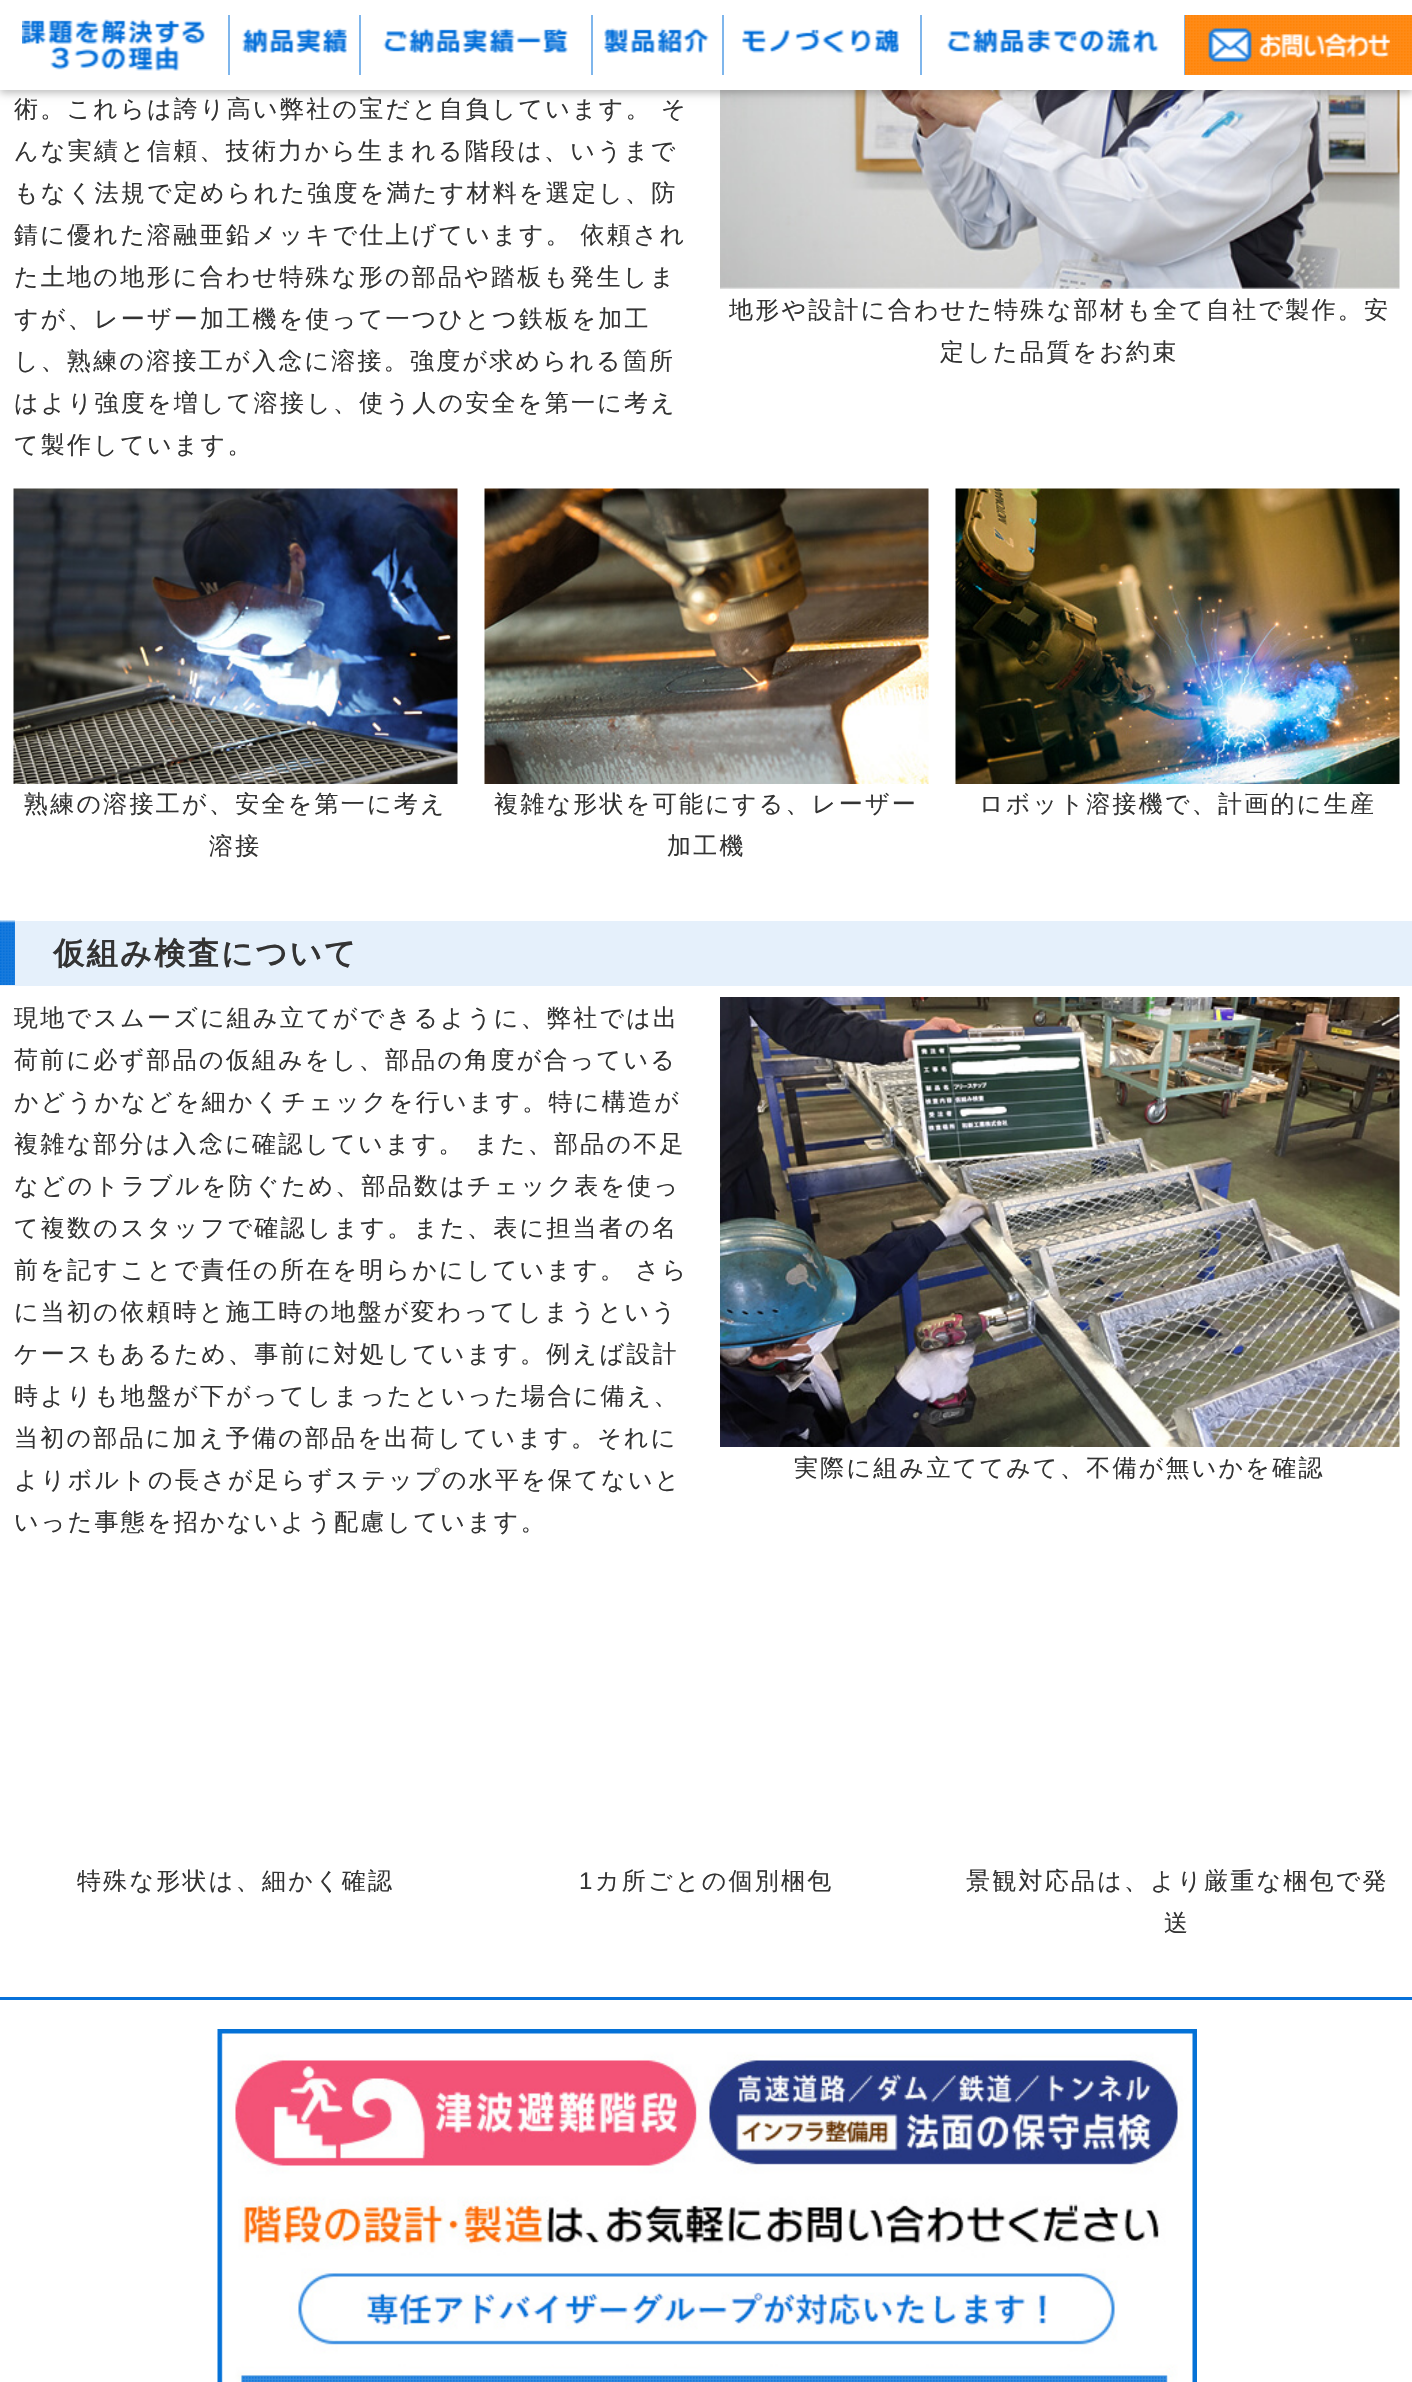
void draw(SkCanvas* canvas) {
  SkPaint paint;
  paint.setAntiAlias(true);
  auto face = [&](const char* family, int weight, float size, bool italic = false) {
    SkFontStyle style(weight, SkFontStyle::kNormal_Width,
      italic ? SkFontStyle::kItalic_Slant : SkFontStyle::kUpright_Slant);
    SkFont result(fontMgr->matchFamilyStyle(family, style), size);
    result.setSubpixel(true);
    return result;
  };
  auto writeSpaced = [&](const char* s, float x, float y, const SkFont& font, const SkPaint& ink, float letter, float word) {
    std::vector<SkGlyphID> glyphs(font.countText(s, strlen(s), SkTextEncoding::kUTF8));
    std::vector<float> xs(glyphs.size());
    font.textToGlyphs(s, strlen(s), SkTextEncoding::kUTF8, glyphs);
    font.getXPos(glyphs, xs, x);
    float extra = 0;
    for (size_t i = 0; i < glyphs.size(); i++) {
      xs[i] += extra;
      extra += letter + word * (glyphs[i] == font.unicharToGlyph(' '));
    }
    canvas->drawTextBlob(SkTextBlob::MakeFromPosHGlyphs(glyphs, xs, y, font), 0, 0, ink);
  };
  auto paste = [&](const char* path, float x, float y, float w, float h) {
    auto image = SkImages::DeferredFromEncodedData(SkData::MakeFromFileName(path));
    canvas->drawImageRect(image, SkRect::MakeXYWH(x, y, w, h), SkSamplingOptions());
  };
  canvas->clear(0xffffffff);
  paste("img/9.png", 720, 90, 680, 199);
  paint.setColor(0x42000000);
  paint.setMaskFilter(SkMaskFilter::MakeBlur(kNormal_SkBlurStyle, 4));
  canvas->drawRect(SkRect::MakeXYWH(0, 3, 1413, 90), paint);
  paint.setMaskFilter(nullptr);
  paint.setColor(0xffffffff);
  canvas->drawRect(SkRect::MakeXYWH(0, 0, 1412, 90), paint);
  paint.setColor(0xff7fb6ec);
  canvas->drawRect(SkRect::MakeXYWH(228, 15, 2, 60), paint);
  paste("img/1.png", 22, 19, 183, 52);
  canvas->drawRect(SkRect::MakeXYWH(359, 15, 2, 60), paint);
  paste("img/2.png", 242, 28, 105, 25);
  canvas->drawRect(SkRect::MakeXYWH(591, 15, 2, 60), paint);
  paste("img/3.png", 383, 28, 185, 25);
  canvas->drawRect(SkRect::MakeXYWH(722, 15, 2, 60), paint);
  paste("img/4.png", 604, 28, 105, 25);
  canvas->drawRect(SkRect::MakeXYWH(920, 15, 2, 60), paint);
  paste("img/5.png", 742, 28, 157, 25);
  canvas->drawRect(SkRect::MakeXYWH(1184, 15, 1, 60), paint);
  paste("img/6.png", 947, 28, 212, 25);
  paste("img/7.png", 1185, 15, 227, 60);
  paste("img/8.png", 1208, 28, 182, 34);
  paste("img/10.png", 13, 488, 445, 296);
  paste("img/11.png", 484, 488, 445, 296);
  paste("img/12.png", 955, 488, 445, 296);
  paint.setColor(0xffe5f0fb);
  canvas->drawRect(SkRect::MakeXYWH(0, 921, 1412, 65), paint);
  paste("img/13.png", 0, 920, 15, 65);
  paste("img/14.png", 720, 997, 680, 450);
  paint.setColor(0xff0771da);
  canvas->drawRect(SkRect::MakeXYWH(0, 1997, 1412, 3), paint);
  paste("img/15.png", 217, 2029, 980, 353);
  auto f0 = face("WenQuanYi Zen Hei", 500, 24);
  paint.setColor(0xff333333);
  {
    const struct { const char* s; float x, y; } items[] = {
      {"術。これらは誇り高い弊社の宝だと自負しています。", 14, 117},
      {"そ", 661, 117},
      {"んな実績と信頼、技術力から生まれる階段は、いうまで", 14, 159},
      {"もなく法規で定められた強度を満たす材料を選定し、防", 14, 201},
    };
    for (auto [s, x, y] : items) {
      writeSpaced(s, x, y, f0, paint, 2.25f, 0);
    }
  }
  writeSpaced("錆に優れた溶融亜鉛メッキで仕上げています。 依頼され", 14, 243, f0, paint, 2.25f, -1);
  {
    const struct { const char* s; float x, y; } items[] = {
      {"た土地の地形に合わせ特殊な形の部品や踏板も発生しま", 14, 285},
      {"すが、レーザー加工機を使って一つひとつ鉄板を加工", 14, 327},
      {"し、熟練の溶接工が入念に溶接。強度が求められる箇所", 14, 369},
      {"はより強度を増して溶接し、使う人の安全を第一に考え", 14, 411},
      {"て製作しています。", 14, 453},
      {"地形や設計に合わせた特殊な部材も全て自社で製作。安", 729, 318},
      {"定した品質をお約束", 940, 360},
      {"熟練の溶接工が、安全を第一に考え", 24, 812},
      {"溶接", 209, 854},
      {"複雑な形状を可能にする、レーザー", 494, 812},
      {"加工機", 667, 854},
      {"ロボット溶接機で、計画的に生産", 979, 812},
    };
    for (auto [s, x, y] : items) {
      writeSpaced(s, x, y, f0, paint, 2.25f, 0);
    }
  }
  auto f1 = face("WenQuanYi Zen Hei", 700, 31.25f);
  writeSpaced("仮組み検査について", 53, 964, f1, paint, 2.25f, 0);
  {
    const struct { const char* s; float x, y; } items[] = {
      {"現地でスムーズに組み立てができるように、弊社では出", 14, 1026},
      {"荷前に必ず部品の仮組みをし、部品の角度が合っている", 14, 1068},
      {"かどうかなどを細かくチェックを行います。特に構造が", 14, 1110},
      {"複雑な部分は入念に確認しています。", 14, 1152},
      {"また、部品の不足", 474, 1152},
      {"などのトラブルを防ぐため、部品数はチェック表を使っ", 14, 1194},
      {"て複数のスタッフで確認します。また、表に担当者の名", 14, 1236},
      {"前を記すことで責任の所在を明らかにしています。", 14, 1278},
      {"さら", 635, 1278},
      {"に当初の依頼時と施工時の地盤が変わってしまうという", 14, 1320},
      {"ケースもあるため、事前に対処しています。例えば設計", 14, 1362},
      {"時よりも地盤が下がってしまったといった場合に備え、", 14, 1404},
      {"当初の部品に加え予備の部品を出荷しています。それに", 14, 1446},
      {"よりボルトの長さが足らずステップの水平を保てないと", 14, 1488},
      {"いった事態を招かないよう配慮しています。", 14, 1530},
      {"実際に組み立ててみて、不備が無いかを確認", 794, 1476},
      {"特殊な形状は、細かく確認", 77, 1889},
    };
    for (auto [s, x, y] : items) {
      writeSpaced(s, x, y, f0, paint, 2.25f, 0);
    }
  }
  auto f2 = face("Liberation Sans", 400, 24);
  writeSpaced("1", 579, 1889, f2, paint, 2.25f, 0);
  {
    const struct { const char* s; float x, y; } items[] = {
      {"カ所ごとの個別梱包", 595, 1889},
      {"景観対応品は、より厳重な梱包で発", 966, 1889},
      {"送", 1164, 1931},
    };
    for (auto [s, x, y] : items) {
      writeSpaced(s, x, y, f0, paint, 2.25f, 0);
    }
  }
}
